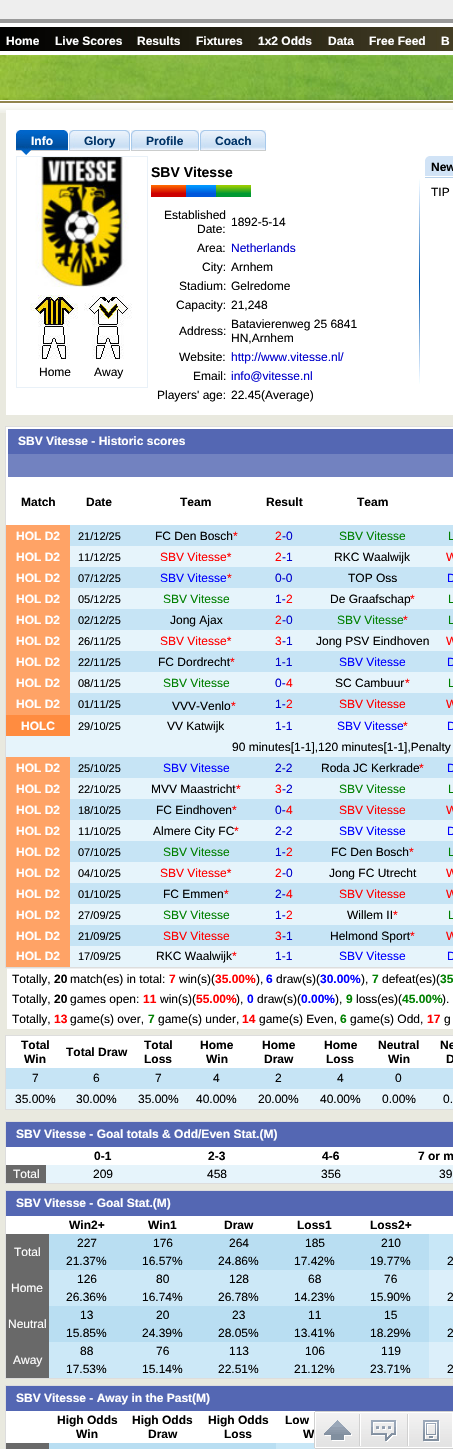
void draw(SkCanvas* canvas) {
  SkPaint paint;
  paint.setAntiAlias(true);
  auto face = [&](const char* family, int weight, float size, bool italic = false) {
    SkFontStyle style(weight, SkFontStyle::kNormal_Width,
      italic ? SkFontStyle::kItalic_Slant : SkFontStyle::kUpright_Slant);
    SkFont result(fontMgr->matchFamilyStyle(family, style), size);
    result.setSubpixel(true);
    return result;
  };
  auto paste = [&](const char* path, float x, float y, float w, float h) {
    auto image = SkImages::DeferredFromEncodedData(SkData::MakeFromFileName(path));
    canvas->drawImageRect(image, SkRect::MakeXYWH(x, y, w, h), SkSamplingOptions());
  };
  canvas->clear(0xffeeeeee);
  paint.setColor(0xff999999);
  canvas->drawRect(SkRect::MakeXYWH(0, 19, 453, 4), paint);
  paint.setColor(0xffffffff);
  canvas->drawRect(SkRect::MakeXYWH(0, 23, 453, 4), paint);
  paste("img/1.png", 0, 27, 453, 24);
  canvas->drawRect(SkRect::MakeXYWH(0, 51, 453, 4), paint);
  paint.setColor(0xffe9e9df);
  canvas->drawRect(SkRect::MakeXYWH(0, 113, 453, 1336), paint);
  paste("img/2.png", 0, 55, 453, 45);
  paste("img/3.png", 0, 100, 453, 13);
  paint.setColor(0xffffffff);
  canvas->drawRect(SkRect::MakeXYWH(6, 110, 447, 305), paint);
  paste("img/4.png", 16, 130, 52, 25);
  paste("img/5.png", 64, 130, 4, 8);
  paste("img/6.png", 69, 130, 61, 21);
  paste("img/7.png", 125, 130, 5, 20);
  paste("img/8.png", 131, 130, 68, 21);
  paste("img/7.png", 194, 130, 5, 20);
  paste("img/9.png", 200, 130, 66, 21);
  paste("img/7.png", 261, 130, 5, 20);
  paint.setStroke(true);
  paint.setStrokeWidth(1);
  paint.setColor(0xffe9f1f8);
  canvas->drawRect(SkRect::MakeXYWH(16.5f, 156.5f, 131, 231), paint);
  paste("img/10.png", 35, 157, 94, 130);
  paste("img/11.png", 30, 295, 48, 64);
  paste("img/12.png", 84, 295, 48, 64);
  paint.setStroke(false);
  paint.setColor(0xffcc0000);
  canvas->drawRect(SkRect::MakeXYWH(151, 193, 35, 4), paint);
  paste("img/13.png", 151, 185, 35, 8);
  paint.setColor(0xff0057db);
  canvas->drawRect(SkRect::MakeXYWH(186, 193, 30, 4), paint);
  paste("img/14.png", 186, 185, 30, 8);
  paint.setColor(0xff009933);
  canvas->drawRect(SkRect::MakeXYWH(216, 193, 35, 4), paint);
  paste("img/15.png", 216, 185, 35, 8);
  paste("img/16.png", 419, 179, 1, 205);
  paste("img/17.png", 425, 156, 6, 22);
  paint.setColor(0xffd1e3f6);
  canvas->drawRect(SkRect::MakeXYWH(431, 156, 22, 20), paint);
  paste("img/18.png", 431, 176, 22, 2);
  {
    const struct { float x, y, w, h; SkColor color; } items[] = {
      {6, 427, 447, 98, 0xffffffff},
      {5, 426, 448, 1, 0xffdddddd},
      {5, 967, 448, 1, 0xffdddddd},
      {5, 426, 1, 542, 0xffdddddd},
      {8, 429, 445, 25, 0xff5467b3},
      {8, 454, 445, 23, 0xff7282c0},
      {70, 525, 383, 21, 0xffc6e4f5},
      {6, 525, 64, 190, 0xffffa366},
      {70, 546, 383, 21, 0xffe6f4fb},
      {70, 567, 383, 21, 0xffc6e4f5},
      {70, 588, 383, 21, 0xffe6f4fb},
      {70, 609, 383, 21, 0xffc6e4f5},
      {70, 630, 383, 21, 0xffe6f4fb},
      {70, 651, 383, 21, 0xffc6e4f5},
      {70, 672, 383, 21, 0xffe6f4fb},
      {70, 693, 383, 22, 0xffc6e4f5},
      {70, 715, 383, 21, 0xffe6f4fb},
      {6, 715, 64, 21, 0xffff8c40},
      {6, 736, 447, 21, 0xffe6f4fb},
      {70, 757, 383, 21, 0xffc6e4f5},
      {6, 757, 64, 210, 0xffffa366},
      {70, 778, 383, 21, 0xffe6f4fb},
      {70, 799, 383, 21, 0xffc6e4f5},
      {70, 820, 383, 21, 0xffe6f4fb},
      {70, 841, 383, 21, 0xffc6e4f5},
      {70, 862, 383, 21, 0xffe6f4fb},
      {70, 883, 383, 21, 0xffc6e4f5},
      {70, 904, 383, 21, 0xffe6f4fb},
      {70, 925, 383, 21, 0xffc6e4f5},
      {70, 946, 383, 21, 0xffe6f4fb},
      {7, 969, 446, 60, 0xffffffff},
      {7, 968, 446, 1, 0xffeeeeee},
      {6, 1036, 447, 32, 0xffffffff},
      {5, 1035, 448, 1, 0xffdddddd},
      {5, 1109, 448, 1, 0xffdddddd},
      {5, 1035, 1, 75, 0xffdddddd},
      {6, 1068, 447, 21, 0xffc6e4f5},
      {6, 1089, 447, 20, 0xffe6f4fb},
      {6, 1147, 447, 18, 0xffffffff},
      {5, 1121, 448, 1, 0xffdddddd},
      {5, 1183, 448, 1, 0xffdddddd},
      {5, 1121, 1, 63, 0xffdddddd},
      {6, 1122, 447, 25, 0xff5467b3},
      {6, 1165, 40, 18, 0xff696969},
      {46, 1165, 407, 18, 0xffe6f4fb},
      {6, 1216, 447, 18, 0xffffffff},
      {5, 1190, 448, 1, 0xffdddddd},
      {5, 1378, 448, 1, 0xffdddddd},
      {5, 1190, 1, 189, 0xffdddddd},
      {6, 1191, 447, 25, 0xff5467b3},
      {49, 1234, 380, 18, 0xffb9def2},
      {429, 1234, 24, 36, 0xffc8e7f7},
      {6, 1234, 43, 144, 0xff696969},
      {49, 1252, 380, 18, 0xffb9def2},
      {49, 1270, 380, 18, 0xffcce8f7},
      {429, 1270, 24, 36, 0xffdceffa},
      {49, 1288, 380, 18, 0xffcce8f7},
      {49, 1306, 380, 18, 0xffb9def2},
      {429, 1306, 24, 36, 0xffc8e7f7},
      {49, 1324, 380, 18, 0xffb9def2},
      {49, 1342, 380, 18, 0xffcce8f7},
      {429, 1342, 24, 36, 0xffdceffa},
      {49, 1360, 380, 18, 0xffcce8f7},
      {6, 1411, 309, 32, 0xffffffff},
      {5, 1385, 448, 1, 0xffdddddd},
      {5, 1385, 1, 64, 0xffdddddd},
      {6, 1386, 447, 25, 0xff5467b3},
      {6, 1443, 43, 6, 0xff696969},
      {49, 1443, 227, 6, 0xffb9def2},
      {276, 1443, 39, 6, 0xffc8e7f7},
    };
    for (auto [x, y, w, h, color] : items) {
      paint.setColor(color);
      canvas->drawRect(SkRect::MakeXYWH(x, y, w, h), paint);
    }
  }
  paste("img/20.png", 361, 1411, 45, 38);
  paste("img/21.png", 406, 1411, 47, 38);
  auto f0 = face("Liberation Sans", 700, 12);
  paint.setColor(0xffffffff);
  {
    const struct { const char* s; float x, y; } items[] = {
      {"Home", 6, 45},
      {"Live Scores", 55, 45},
      {"Results", 137, 45},
      {"Fixtures", 196, 45},
      {"1x2 Odds", 258, 45},
      {"Data", 328, 45},
      {"Free Feed", 369, 45},
      {"B", 441, 45},
      {"Info", 31, 145},
    };
    for (auto [s, x, y] : items) {
      canvas->drawString(s, x, y, f0, paint);
    }
  }
  paint.setColor(0xff003366);
  {
    const struct { const char* s; float x, y; } items[] = {
      {"Glory", 84, 145},
      {"Profile", 146, 145},
      {"Coach", 215, 145},
    };
    for (auto [s, x, y] : items) {
      canvas->drawString(s, x, y, f0, paint);
    }
  }
  auto f1 = face("Liberation Sans", 400, 12);
  paint.setColor(0xff000000);
  canvas->drawString("Home", 39, 376, f1, paint);
  canvas->drawString("Away", 94, 376, f1, paint);
  auto f2 = face("Liberation Sans", 700, 14);
  canvas->drawString("SBV Vitesse", 151, 177, f2, paint);
  {
    const struct { const char* s; float x, y; } items[] = {
      {"Established", 164, 219},
      {"Date:", 197, 233},
      {"1892-5-14", 231, 226},
      {"Area:", 197, 252},
    };
    for (auto [s, x, y] : items) {
      canvas->drawString(s, x, y, f1, paint);
    }
  }
  paint.setColor(0xff0000cc);
  canvas->drawString("Netherlands", 231, 252, f1, paint);
  paint.setColor(0xff000000);
  {
    const struct { const char* s; float x, y; } items[] = {
      {"City:", 202, 271},
      {"Arnhem", 231, 271},
      {"Stadium:", 179, 290},
      {"Gelredome", 231, 290},
      {"Capacity:", 176, 309},
      {"21,248", 231, 309},
      {"Address:", 179, 335},
      {"Batavierenweg 25 6841", 231, 328},
      {"HN,Arnhem", 231, 342},
      {"Website:", 179, 361},
    };
    for (auto [s, x, y] : items) {
      canvas->drawString(s, x, y, f1, paint);
    }
  }
  paint.setColor(0xff0000cc);
  canvas->drawString("http://www.vitesse.nl/", 231, 361, f1, paint);
  paint.setColor(0xff000000);
  canvas->drawString("Email:", 193, 380, f1, paint);
  paint.setColor(0xff0000cc);
  canvas->drawString("info@vitesse.nl", 231, 380, f1, paint);
  paint.setColor(0xff000000);
  canvas->drawString("Players' age:", 157, 399, f1, paint);
  canvas->drawString("22.45(Average)", 231, 399, f1, paint);
  canvas->drawString("New", 431, 171, f0, paint);
  canvas->drawString("TIP", 431, 196, f1, paint);
  paint.setColor(0xffffffff);
  canvas->drawString("SBV Vitesse - Historic scores", 18, 445, f0, paint);
  paint.setColor(0xff000000);
  {
    const struct { const char* s; float x, y; } items[] = {
      {"Match", 21, 506},
      {"Date", 86, 506},
      {"Team", 180, 506},
      {"Result", 266, 506},
      {"Team", 357, 506},
    };
    for (auto [s, x, y] : items) {
      canvas->drawString(s, x, y, f0, paint);
    }
  }
  paint.setColor(0xffffffff);
  canvas->drawString("HOL D2", 16, 540, f0, paint);
  auto f3 = face("Liberation Sans", 400, 11);
  paint.setColor(0xff000000);
  canvas->drawString("21/12/25", 78, 540, f3, paint);
  canvas->drawString("FC Den Bosch", 155, 540, f1, paint);
  paint.setColor(0xffff0000);
  canvas->drawString("*", 233, 540, f1, paint);
  canvas->drawString("2", 275, 540, f1, paint);
  paint.setColor(0xff0000cc);
  canvas->drawString("-0", 282, 540, f1, paint);
  paint.setColor(0xff008000);
  canvas->drawString("SBV Vitesse", 339, 540, f1, paint);
  canvas->drawString("L", 448, 540, f1, paint);
  paint.setColor(0xffffffff);
  canvas->drawString("HOL D2", 16, 561, f0, paint);
  paint.setColor(0xff000000);
  canvas->drawString("11/12/25", 78, 561, f3, paint);
  paint.setColor(0xffff0000);
  canvas->drawString("SBV Vitesse*", 160, 561, f1, paint);
  canvas->drawString("2", 275, 561, f1, paint);
  paint.setColor(0xff0000cc);
  canvas->drawString("-1", 282, 561, f1, paint);
  paint.setColor(0xff000000);
  canvas->drawString("RKC Waalwijk", 334, 561, f1, paint);
  paint.setColor(0xffff0000);
  canvas->drawString("W", 446, 561, f1, paint);
  paint.setColor(0xffffffff);
  canvas->drawString("HOL D2", 16, 582, f0, paint);
  paint.setColor(0xff000000);
  canvas->drawString("07/12/25", 78, 582, f3, paint);
  paint.setColor(0xff0000ff);
  canvas->drawString("SBV Vitesse", 160, 582, f1, paint);
  paint.setColor(0xffff0000);
  canvas->drawString("*", 227, 582, f1, paint);
  paint.setColor(0xff0000cc);
  canvas->drawString("0-0", 275, 582, f1, paint);
  paint.setColor(0xff000000);
  canvas->drawString("TOP Oss", 348, 582, f1, paint);
  paint.setColor(0xff0000ff);
  canvas->drawString("D", 447, 582, f1, paint);
  paint.setColor(0xffffffff);
  canvas->drawString("HOL D2", 16, 603, f0, paint);
  paint.setColor(0xff000000);
  canvas->drawString("05/12/25", 78, 603, f3, paint);
  paint.setColor(0xff008000);
  canvas->drawString("SBV Vitesse", 163, 603, f1, paint);
  paint.setColor(0xff0000cc);
  canvas->drawString("1-", 275, 603, f1, paint);
  paint.setColor(0xffff0000);
  canvas->drawString("2", 286, 603, f1, paint);
  paint.setColor(0xff000000);
  canvas->drawString("De Graafschap", 330, 603, f1, paint);
  paint.setColor(0xffff0000);
  canvas->drawString("*", 410, 603, f1, paint);
  paint.setColor(0xff008000);
  canvas->drawString("L", 448, 603, f1, paint);
  paint.setColor(0xffffffff);
  canvas->drawString("HOL D2", 16, 624, f0, paint);
  paint.setColor(0xff000000);
  canvas->drawString("02/12/25", 78, 624, f3, paint);
  canvas->drawString("Jong Ajax", 170, 624, f1, paint);
  paint.setColor(0xffff0000);
  canvas->drawString("2", 275, 624, f1, paint);
  paint.setColor(0xff0000cc);
  canvas->drawString("-0", 282, 624, f1, paint);
  paint.setColor(0xff008000);
  canvas->drawString("SBV Vitesse", 337, 624, f1, paint);
  paint.setColor(0xffff0000);
  canvas->drawString("*", 403, 624, f1, paint);
  paint.setColor(0xff008000);
  canvas->drawString("L", 448, 624, f1, paint);
  paint.setColor(0xffffffff);
  canvas->drawString("HOL D2", 16, 645, f0, paint);
  paint.setColor(0xff000000);
  canvas->drawString("26/11/25", 78, 645, f3, paint);
  paint.setColor(0xffff0000);
  canvas->drawString("SBV Vitesse*", 160, 645, f1, paint);
  canvas->drawString("3", 275, 645, f1, paint);
  paint.setColor(0xff0000cc);
  canvas->drawString("-1", 282, 645, f1, paint);
  paint.setColor(0xff000000);
  canvas->drawString("Jong PSV Eindhoven", 316, 645, f1, paint);
  paint.setColor(0xffff0000);
  canvas->drawString("W", 446, 645, f1, paint);
  paint.setColor(0xffffffff);
  canvas->drawString("HOL D2", 16, 666, f0, paint);
  paint.setColor(0xff000000);
  canvas->drawString("22/11/25", 78, 666, f3, paint);
  canvas->drawString("FC Dordrecht", 158, 666, f1, paint);
  paint.setColor(0xffff0000);
  canvas->drawString("*", 230, 666, f1, paint);
  paint.setColor(0xff0000cc);
  canvas->drawString("1-1", 275, 666, f1, paint);
  paint.setColor(0xff0000ff);
  canvas->drawString("SBV Vitesse", 339, 666, f1, paint);
  canvas->drawString("D", 447, 666, f1, paint);
  paint.setColor(0xffffffff);
  canvas->drawString("HOL D2", 16, 687, f0, paint);
  paint.setColor(0xff000000);
  canvas->drawString("08/11/25", 78, 687, f3, paint);
  paint.setColor(0xff008000);
  canvas->drawString("SBV Vitesse", 163, 687, f1, paint);
  paint.setColor(0xff0000cc);
  canvas->drawString("0-", 275, 687, f1, paint);
  paint.setColor(0xffff0000);
  canvas->drawString("4", 286, 687, f1, paint);
  paint.setColor(0xff000000);
  canvas->drawString("SC Cambuur", 335, 687, f1, paint);
  paint.setColor(0xffff0000);
  canvas->drawString("*", 405, 687, f1, paint);
  paint.setColor(0xff008000);
  canvas->drawString("L", 448, 687, f1, paint);
  paint.setColor(0xffffffff);
  canvas->drawString("HOL D2", 16, 708, f0, paint);
  paint.setColor(0xff000000);
  canvas->drawString("01/11/25", 78, 708, f3, paint);
  canvas->drawString("VVV-Venlo", 172, 710, f1, paint);
  paint.setColor(0xffff0000);
  canvas->drawString("*", 231, 710, f1, paint);
  paint.setColor(0xff0000cc);
  canvas->drawString("1-", 275, 708, f1, paint);
  paint.setColor(0xffff0000);
  {
    const struct { const char* s; float x, y; } items[] = {
      {"2", 286, 708},
      {"SBV Vitesse", 339, 708},
      {"W", 446, 708},
    };
    for (auto [s, x, y] : items) {
      canvas->drawString(s, x, y, f1, paint);
    }
  }
  paint.setColor(0xffffffff);
  canvas->drawString("HOLC", 21, 730, f0, paint);
  paint.setColor(0xff000000);
  canvas->drawString("29/10/25", 78, 730, f3, paint);
  canvas->drawString("VV Katwijk", 167, 730, f1, paint);
  paint.setColor(0xff0000cc);
  canvas->drawString("1-1", 275, 730, f1, paint);
  paint.setColor(0xff0000ff);
  canvas->drawString("SBV Vitesse", 337, 730, f1, paint);
  paint.setColor(0xffff0000);
  canvas->drawString("*", 403, 730, f1, paint);
  paint.setColor(0xff0000ff);
  canvas->drawString("D", 447, 730, f1, paint);
  paint.setColor(0xff000000);
  canvas->drawString("90 minutes[1-1],120 minutes[1-1],Penalty", 232, 751, f1, paint);
  paint.setColor(0xffffffff);
  canvas->drawString("HOL D2", 16, 772, f0, paint);
  paint.setColor(0xff000000);
  canvas->drawString("25/10/25", 78, 772, f3, paint);
  paint.setColor(0xff0000ff);
  canvas->drawString("SBV Vitesse", 163, 772, f1, paint);
  paint.setColor(0xff0000cc);
  canvas->drawString("2-2", 275, 772, f1, paint);
  paint.setColor(0xff000000);
  canvas->drawString("Roda JC Kerkrade", 321, 772, f1, paint);
  paint.setColor(0xffff0000);
  canvas->drawString("*", 419, 772, f1, paint);
  paint.setColor(0xff0000ff);
  canvas->drawString("D", 447, 772, f1, paint);
  paint.setColor(0xffffffff);
  canvas->drawString("HOL D2", 16, 793, f0, paint);
  paint.setColor(0xff000000);
  canvas->drawString("22/10/25", 78, 793, f3, paint);
  canvas->drawString("MVV Maastricht", 151, 793, f1, paint);
  paint.setColor(0xffff0000);
  canvas->drawString("*", 236, 793, f1, paint);
  canvas->drawString("3", 275, 793, f1, paint);
  paint.setColor(0xff0000cc);
  canvas->drawString("-2", 282, 793, f1, paint);
  paint.setColor(0xff008000);
  canvas->drawString("SBV Vitesse", 339, 793, f1, paint);
  canvas->drawString("L", 448, 793, f1, paint);
  paint.setColor(0xffffffff);
  canvas->drawString("HOL D2", 16, 814, f0, paint);
  paint.setColor(0xff000000);
  canvas->drawString("18/10/25", 78, 814, f3, paint);
  canvas->drawString("FC Eindhoven", 156, 814, f1, paint);
  paint.setColor(0xffff0000);
  canvas->drawString("*", 232, 814, f1, paint);
  paint.setColor(0xff0000cc);
  canvas->drawString("0-", 275, 814, f1, paint);
  paint.setColor(0xffff0000);
  {
    const struct { const char* s; float x, y; } items[] = {
      {"4", 286, 814},
      {"SBV Vitesse", 339, 814},
      {"W", 446, 814},
    };
    for (auto [s, x, y] : items) {
      canvas->drawString(s, x, y, f1, paint);
    }
  }
  paint.setColor(0xffffffff);
  canvas->drawString("HOL D2", 16, 835, f0, paint);
  paint.setColor(0xff000000);
  canvas->drawString("11/10/25", 78, 835, f3, paint);
  canvas->drawString("Almere City FC", 153, 835, f1, paint);
  paint.setColor(0xffff0000);
  canvas->drawString("*", 234, 835, f1, paint);
  paint.setColor(0xff0000cc);
  canvas->drawString("2-2", 275, 835, f1, paint);
  paint.setColor(0xff0000ff);
  canvas->drawString("SBV Vitesse", 339, 835, f1, paint);
  canvas->drawString("D", 447, 835, f1, paint);
  paint.setColor(0xffffffff);
  canvas->drawString("HOL D2", 16, 856, f0, paint);
  paint.setColor(0xff000000);
  canvas->drawString("07/10/25", 78, 856, f3, paint);
  paint.setColor(0xff008000);
  canvas->drawString("SBV Vitesse", 163, 856, f1, paint);
  paint.setColor(0xff0000cc);
  canvas->drawString("1-", 275, 856, f1, paint);
  paint.setColor(0xffff0000);
  canvas->drawString("2", 286, 856, f1, paint);
  paint.setColor(0xff000000);
  canvas->drawString("FC Den Bosch", 331, 856, f1, paint);
  paint.setColor(0xffff0000);
  canvas->drawString("*", 409, 856, f1, paint);
  paint.setColor(0xff008000);
  canvas->drawString("L", 448, 856, f1, paint);
  paint.setColor(0xffffffff);
  canvas->drawString("HOL D2", 16, 877, f0, paint);
  paint.setColor(0xff000000);
  canvas->drawString("04/10/25", 78, 877, f3, paint);
  paint.setColor(0xffff0000);
  canvas->drawString("SBV Vitesse*", 160, 877, f1, paint);
  canvas->drawString("2", 275, 877, f1, paint);
  paint.setColor(0xff0000cc);
  canvas->drawString("-0", 282, 877, f1, paint);
  paint.setColor(0xff000000);
  canvas->drawString("Jong FC Utrecht", 329, 877, f1, paint);
  paint.setColor(0xffff0000);
  canvas->drawString("W", 446, 877, f1, paint);
  paint.setColor(0xffffffff);
  canvas->drawString("HOL D2", 16, 898, f0, paint);
  paint.setColor(0xff000000);
  canvas->drawString("01/10/25", 78, 898, f3, paint);
  canvas->drawString("FC Emmen", 163, 898, f1, paint);
  paint.setColor(0xffff0000);
  canvas->drawString("*", 224, 898, f1, paint);
  paint.setColor(0xff0000cc);
  canvas->drawString("2-", 275, 898, f1, paint);
  paint.setColor(0xffff0000);
  {
    const struct { const char* s; float x, y; } items[] = {
      {"4", 286, 898},
      {"SBV Vitesse", 339, 898},
      {"W", 446, 898},
    };
    for (auto [s, x, y] : items) {
      canvas->drawString(s, x, y, f1, paint);
    }
  }
  paint.setColor(0xffffffff);
  canvas->drawString("HOL D2", 16, 919, f0, paint);
  paint.setColor(0xff000000);
  canvas->drawString("27/09/25", 78, 919, f3, paint);
  paint.setColor(0xff008000);
  canvas->drawString("SBV Vitesse", 163, 919, f1, paint);
  paint.setColor(0xff0000cc);
  canvas->drawString("1-", 275, 919, f1, paint);
  paint.setColor(0xffff0000);
  canvas->drawString("2", 286, 919, f1, paint);
  paint.setColor(0xff000000);
  canvas->drawString("Willem II", 347, 919, f1, paint);
  paint.setColor(0xffff0000);
  canvas->drawString("*", 393, 919, f1, paint);
  paint.setColor(0xff008000);
  canvas->drawString("L", 448, 919, f1, paint);
  paint.setColor(0xffffffff);
  canvas->drawString("HOL D2", 16, 940, f0, paint);
  paint.setColor(0xff000000);
  canvas->drawString("21/09/25", 78, 940, f3, paint);
  paint.setColor(0xffff0000);
  canvas->drawString("SBV Vitesse", 163, 940, f1, paint);
  canvas->drawString("3", 275, 940, f1, paint);
  paint.setColor(0xff0000cc);
  canvas->drawString("-1", 282, 940, f1, paint);
  paint.setColor(0xff000000);
  canvas->drawString("Helmond Sport", 330, 940, f1, paint);
  paint.setColor(0xffff0000);
  canvas->drawString("*", 410, 940, f1, paint);
  canvas->drawString("W", 446, 940, f1, paint);
  paint.setColor(0xffffffff);
  canvas->drawString("HOL D2", 16, 960, f0, paint);
  paint.setColor(0xff000000);
  canvas->drawString("17/09/25", 78, 960, f3, paint);
  canvas->drawString("RKC Waalwijk", 156, 960, f1, paint);
  paint.setColor(0xffff0000);
  canvas->drawString("*", 232, 960, f1, paint);
  paint.setColor(0xff0000cc);
  canvas->drawString("1-1", 275, 960, f1, paint);
  paint.setColor(0xff0000ff);
  canvas->drawString("SBV Vitesse", 339, 960, f1, paint);
  canvas->drawString("D", 447, 960, f1, paint);
  paint.setColor(0xff000000);
  canvas->drawString("Totally,", 12, 983, f1, paint);
  canvas->drawString("20", 54, 983, f0, paint);
  canvas->drawString("match(es) in total:", 70, 983, f1, paint);
  paint.setColor(0xffff0000);
  canvas->drawString("7", 169, 983, f0, paint);
  paint.setColor(0xff000000);
  canvas->drawString("win(s)(", 179, 983, f1, paint);
  paint.setColor(0xffff0000);
  canvas->drawString("35.00%", 215, 983, f0, paint);
  paint.setColor(0xff000000);
  canvas->drawString("),", 256, 983, f1, paint);
  paint.setColor(0xff0000ff);
  canvas->drawString("6", 266, 983, f0, paint);
  paint.setColor(0xff000000);
  canvas->drawString("draw(s)(", 276, 983, f1, paint);
  paint.setColor(0xff0000ff);
  canvas->drawString("30.00%", 320, 983, f0, paint);
  paint.setColor(0xff000000);
  canvas->drawString("),", 361, 983, f1, paint);
  paint.setColor(0xff008000);
  canvas->drawString("7", 372, 983, f0, paint);
  paint.setColor(0xff000000);
  canvas->drawString("defeat(es)(", 382, 983, f1, paint);
  paint.setColor(0xff008000);
  canvas->drawString("35", 440, 983, f0, paint);
  paint.setColor(0xff000000);
  canvas->drawString("Totally,", 12, 1003, f1, paint);
  canvas->drawString("20", 54, 1003, f0, paint);
  canvas->drawString("games open:", 70, 1003, f1, paint);
  paint.setColor(0xffff0000);
  canvas->drawString("11", 143, 1003, f0, paint);
  paint.setColor(0xff000000);
  canvas->drawString("win(s)(", 160, 1003, f1, paint);
  paint.setColor(0xffff0000);
  canvas->drawString("55.00%", 196, 1003, f0, paint);
  paint.setColor(0xff000000);
  canvas->drawString("),", 236, 1003, f1, paint);
  paint.setColor(0xff0000ff);
  canvas->drawString("0", 247, 1003, f0, paint);
  paint.setColor(0xff000000);
  canvas->drawString("draw(s)(", 257, 1003, f1, paint);
  paint.setColor(0xff0000ff);
  canvas->drawString("0.00%", 301, 1003, f0, paint);
  paint.setColor(0xff000000);
  canvas->drawString("),", 335, 1003, f1, paint);
  paint.setColor(0xff008000);
  canvas->drawString("9", 346, 1003, f0, paint);
  paint.setColor(0xff000000);
  canvas->drawString("loss(es)(", 356, 1003, f1, paint);
  paint.setColor(0xff008000);
  canvas->drawString("45.00%", 402, 1003, f0, paint);
  paint.setColor(0xff000000);
  canvas->drawString(").", 442, 1003, f1, paint);
  canvas->drawString("Totally,", 12, 1023, f1, paint);
  paint.setColor(0xffff0000);
  canvas->drawString("13", 54, 1023, f0, paint);
  paint.setColor(0xff000000);
  canvas->drawString("game(s) over,", 70, 1023, f1, paint);
  paint.setColor(0xff008000);
  canvas->drawString("7", 148, 1023, f0, paint);
  paint.setColor(0xff000000);
  canvas->drawString("game(s) under,", 158, 1023, f1, paint);
  paint.setColor(0xffff0000);
  canvas->drawString("14", 242, 1023, f0, paint);
  paint.setColor(0xff000000);
  canvas->drawString("game(s) Even,", 259, 1023, f1, paint);
  paint.setColor(0xff008000);
  canvas->drawString("6", 340, 1023, f0, paint);
  paint.setColor(0xff000000);
  canvas->drawString("game(s) Odd,", 350, 1023, f1, paint);
  paint.setColor(0xffff0000);
  canvas->drawString("17", 427, 1023, f0, paint);
  paint.setColor(0xff000000);
  canvas->drawString("g", 444, 1023, f1, paint);
  {
    const struct { const char* s; float x, y; } items[] = {
      {"Total", 21, 1049},
      {"Win", 24, 1063},
      {"Total Draw", 66, 1056},
      {"Total", 144, 1049},
      {"Loss", 144, 1063},
      {"Home", 200, 1049},
      {"Win", 206, 1063},
      {"Home", 262, 1049},
      {"Draw", 264, 1063},
      {"Home", 324, 1049},
      {"Loss", 326, 1063},
      {"Neutral", 378, 1049},
      {"Win", 388, 1063},
      {"Ne", 440, 1049},
      {"D", 446, 1063},
    };
    for (auto [s, x, y] : items) {
      canvas->drawString(s, x, y, f0, paint);
    }
  }
  {
    const struct { const char* s; float x, y; } items[] = {
      {"7", 32, 1082},
      {"6", 93, 1082},
      {"7", 155, 1082},
      {"4", 213, 1082},
      {"2", 275, 1082},
      {"4", 337, 1082},
      {"0", 395, 1082},
      {"35.00%", 15, 1103},
      {"30.00%", 76, 1103},
      {"35.00%", 138, 1103},
      {"40.00%", 196, 1103},
      {"20.00%", 258, 1103},
      {"40.00%", 320, 1103},
      {"0.00%", 382, 1103},
      {"0.", 443, 1103},
    };
    for (auto [s, x, y] : items) {
      canvas->drawString(s, x, y, f1, paint);
    }
  }
  paint.setColor(0xffffffff);
  canvas->drawString("SBV Vitesse - Goal totals & Odd/Even Stat.(M)", 16, 1138, f0, paint);
  paint.setColor(0xff000000);
  {
    const struct { const char* s; float x, y; } items[] = {
      {"0-1", 94, 1160},
      {"2-3", 208, 1160},
      {"4-6", 322, 1160},
      {"7 or m", 418, 1160},
    };
    for (auto [s, x, y] : items) {
      canvas->drawString(s, x, y, f0, paint);
    }
  }
  paint.setColor(0xffffffff);
  canvas->drawString("Total", 13, 1178, f1, paint);
  paint.setColor(0xff000000);
  {
    const struct { const char* s; float x, y; } items[] = {
      {"209", 93, 1178},
      {"458", 207, 1178},
      {"356", 321, 1178},
      {"39", 439, 1178},
    };
    for (auto [s, x, y] : items) {
      canvas->drawString(s, x, y, f1, paint);
    }
  }
  paint.setColor(0xffffffff);
  canvas->drawString("SBV Vitesse - Goal Stat.(M)", 16, 1207, f0, paint);
  paint.setColor(0xff000000);
  {
    const struct { const char* s; float x, y; } items[] = {
      {"Win2+", 69, 1229},
      {"Win1", 148, 1229},
      {"Draw", 224, 1229},
      {"Loss1", 297, 1229},
      {"Loss2+", 370, 1229},
    };
    for (auto [s, x, y] : items) {
      canvas->drawString(s, x, y, f0, paint);
    }
  }
  {
    const struct { const char* s; float x, y; } items[] = {
      {"227", 77, 1247},
      {"176", 153, 1247},
      {"264", 229, 1247},
      {"185", 305, 1247},
      {"210", 381, 1247},
    };
    for (auto [s, x, y] : items) {
      canvas->drawString(s, x, y, f1, paint);
    }
  }
  paint.setColor(0xffffffff);
  canvas->drawString("Total", 14, 1256, f1, paint);
  paint.setColor(0xff000000);
  {
    const struct { const char* s; float x, y; } items[] = {
      {"21.37%", 66, 1265},
      {"16.57%", 142, 1265},
      {"24.86%", 218, 1265},
      {"17.42%", 294, 1265},
      {"19.77%", 370, 1265},
      {"2", 447, 1265},
      {"126", 77, 1283},
      {"80", 156, 1283},
      {"128", 229, 1283},
      {"68", 308, 1283},
      {"76", 384, 1283},
    };
    for (auto [s, x, y] : items) {
      canvas->drawString(s, x, y, f1, paint);
    }
  }
  paint.setColor(0xffffffff);
  canvas->drawString("Home", 11, 1292, f1, paint);
  paint.setColor(0xff000000);
  {
    const struct { const char* s; float x, y; } items[] = {
      {"26.36%", 66, 1301},
      {"16.74%", 142, 1301},
      {"26.78%", 218, 1301},
      {"14.23%", 294, 1301},
      {"15.90%", 370, 1301},
      {"2", 447, 1301},
      {"13", 80, 1319},
      {"20", 156, 1319},
      {"23", 232, 1319},
      {"11", 308, 1319},
      {"15", 384, 1319},
    };
    for (auto [s, x, y] : items) {
      canvas->drawString(s, x, y, f1, paint);
    }
  }
  paint.setColor(0xffffffff);
  canvas->drawString("Neutral", 8, 1328, f1, paint);
  paint.setColor(0xff000000);
  {
    const struct { const char* s; float x, y; } items[] = {
      {"15.85%", 66, 1337},
      {"24.39%", 142, 1337},
      {"28.05%", 218, 1337},
      {"13.41%", 294, 1337},
      {"18.29%", 370, 1337},
      {"2", 447, 1337},
      {"88", 80, 1355},
      {"76", 156, 1355},
      {"113", 229, 1355},
      {"106", 305, 1355},
      {"119", 381, 1355},
    };
    for (auto [s, x, y] : items) {
      canvas->drawString(s, x, y, f1, paint);
    }
  }
  paint.setColor(0xffffffff);
  canvas->drawString("Away", 13, 1364, f1, paint);
  paint.setColor(0xff000000);
  {
    const struct { const char* s; float x, y; } items[] = {
      {"17.53%", 66, 1373},
      {"15.14%", 142, 1373},
      {"22.51%", 218, 1373},
      {"21.12%", 294, 1373},
      {"23.71%", 370, 1373},
      {"2", 447, 1373},
    };
    for (auto [s, x, y] : items) {
      canvas->drawString(s, x, y, f1, paint);
    }
  }
  paint.setColor(0xffffffff);
  canvas->drawString("SBV Vitesse - Away in the Past(M)", 16, 1402, f0, paint);
  paint.setColor(0xff000000);
  {
    const struct { const char* s; float x, y; } items[] = {
      {"High Odds", 57, 1424},
      {"Win", 76, 1438},
      {"High Odds", 132, 1424},
      {"Draw", 148, 1438},
      {"High Odds", 208, 1424},
      {"Loss", 224, 1438},
      {"Low", 285, 1424},
      {"W", 303, 1438},
    };
    for (auto [s, x, y] : items) {
      canvas->drawString(s, x, y, f0, paint);
    }
  }
  paste("img/19.png", 314, 1411, 47, 38);
}
